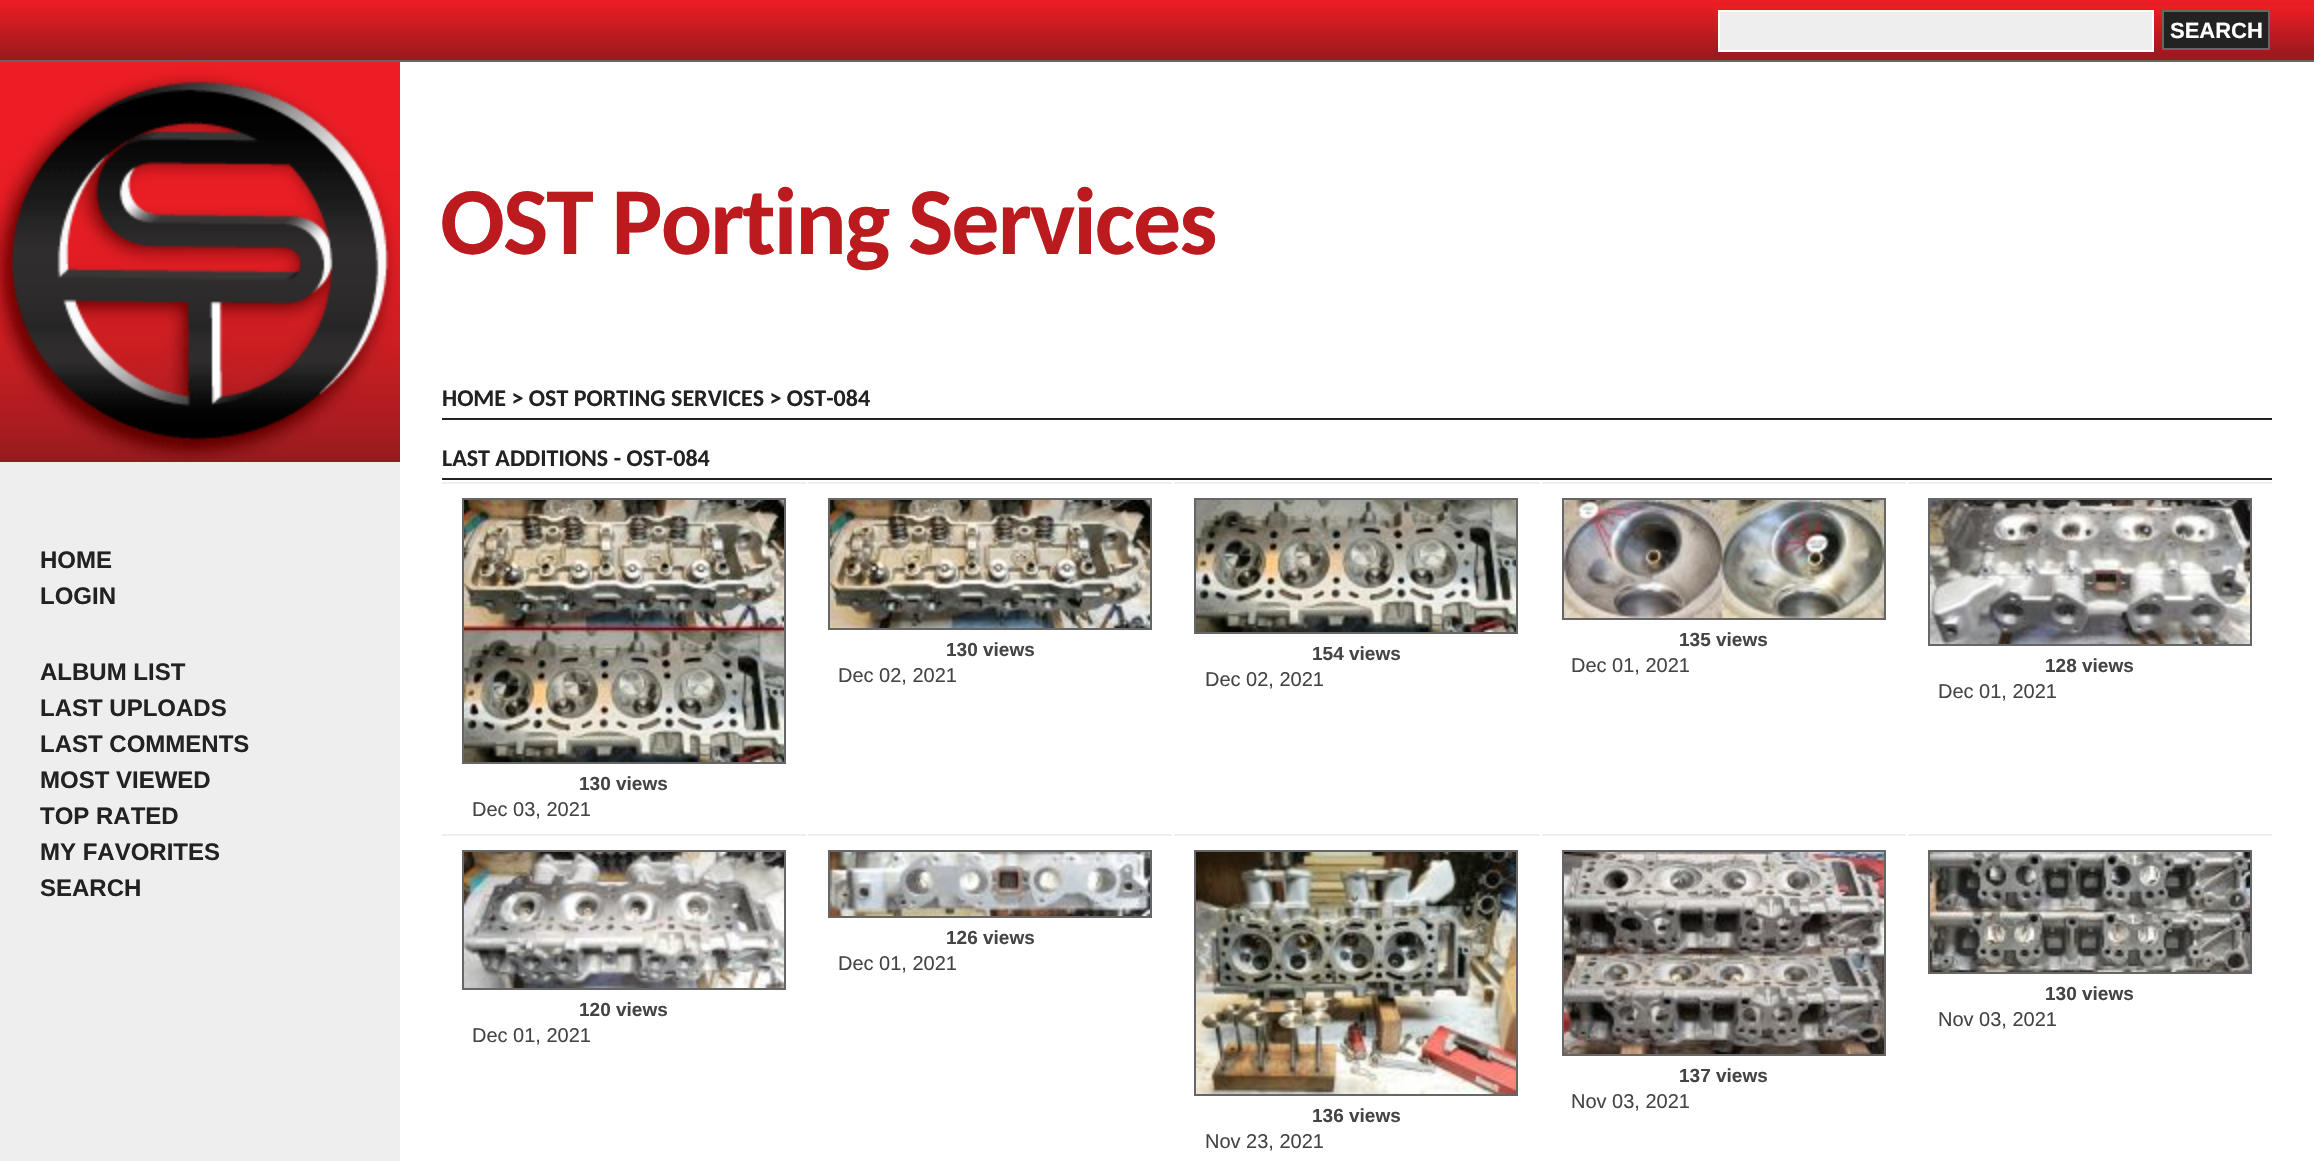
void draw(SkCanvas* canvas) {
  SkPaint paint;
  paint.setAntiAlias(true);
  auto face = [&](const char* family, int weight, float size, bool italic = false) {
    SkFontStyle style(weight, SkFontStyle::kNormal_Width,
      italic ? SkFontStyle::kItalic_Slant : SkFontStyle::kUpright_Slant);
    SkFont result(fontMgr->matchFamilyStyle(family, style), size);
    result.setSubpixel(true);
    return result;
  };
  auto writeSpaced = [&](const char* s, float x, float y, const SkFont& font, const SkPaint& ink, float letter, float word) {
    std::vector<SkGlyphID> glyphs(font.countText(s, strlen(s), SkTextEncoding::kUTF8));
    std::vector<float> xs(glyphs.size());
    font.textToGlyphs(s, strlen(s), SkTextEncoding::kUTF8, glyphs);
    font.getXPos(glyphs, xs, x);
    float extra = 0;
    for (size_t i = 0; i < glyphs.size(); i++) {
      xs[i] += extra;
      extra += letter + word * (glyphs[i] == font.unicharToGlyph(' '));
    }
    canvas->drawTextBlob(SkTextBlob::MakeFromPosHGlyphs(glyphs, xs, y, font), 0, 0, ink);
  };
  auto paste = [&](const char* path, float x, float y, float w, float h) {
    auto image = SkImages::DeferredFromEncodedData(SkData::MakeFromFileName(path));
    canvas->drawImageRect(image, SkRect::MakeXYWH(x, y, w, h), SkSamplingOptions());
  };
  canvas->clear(0xffffffff);
  {
    const SkColor colors[] = {0xffed1d24, 0xff991a1e};
    const float stops[] = {0, 1};
    const SkPoint ends[] = {{1157, 0}, {1157, 60}};
    paint.setShader(SkGradientShader::MakeLinear(ends, colors, stops, 2, SkTileMode::kClamp));
    paint.setAlpha(255);
  }
  canvas->drawRect(SkRect::MakeXYWH(0, 0, 2314, 60), paint);
  paint.setShader(nullptr);
  paint.setColor(0xff666666);
  canvas->drawRect(SkRect::MakeXYWH(0, 60, 2314, 2), paint);
  {
    const SkColor colors[] = {0xffed1d24, 0xff991a1e};
    const float stops[] = {0, 1};
    const SkPoint ends[] = {{2014, 6}, {2014, 56}};
    paint.setShader(SkGradientShader::MakeLinear(ends, colors, stops, 2, SkTileMode::kClamp));
    paint.setAlpha(255);
  }
  canvas->drawRect(SkRect::MakeXYWH(1714, 6, 600, 50), paint);
  paint.setShader(nullptr);
  paint.setColor(0xffeeeeee);
  canvas->drawRect(SkRect::MakeXYWH(1719, 11, 434, 40), paint);
  paint.setStroke(true);
  paint.setStrokeWidth(2);
  paint.setColor(0xffffffff);
  canvas->drawRect(SkRect::MakeXYWH(1719, 11, 434, 40), paint);
  paint.setStroke(false);
  paint.setColor(0xff222222);
  canvas->drawRect(SkRect::MakeXYWH(2163, 11, 106, 38), paint);
  paint.setStroke(true);
  paint.setColor(0xff666666);
  canvas->drawRect(SkRect::MakeXYWH(2163, 11, 106, 38), paint);
  paint.setStroke(false);
  paint.setColor(0xffeeeeee);
  canvas->drawRect(SkRect::MakeXYWH(0, 462, 400, 699), paint);
  paste("img/1.png", 0, 62, 400, 400);
  {
    const struct { float x, y, w, h; SkColor color; } items[] = {
      {442, 418, 1830, 2, 0xff222222},
      {442, 478, 1830, 2, 0xff222222},
      {808, 482, 364, 2, 0xffeeeeee},
    };
    for (auto [x, y, w, h, color] : items) {
      paint.setColor(color);
      canvas->drawRect(SkRect::MakeXYWH(x, y, w, h), paint);
    }
  }
  paint.setStroke(true);
  paint.setColor(0xff666666);
  canvas->drawRect(SkRect::MakeXYWH(829, 499, 322, 130), paint);
  paste("img/2.png", 830, 500, 320, 128);
  paint.setStroke(false);
  paint.setColor(0xffeeeeee);
  canvas->drawRect(SkRect::MakeXYWH(1174, 482, 366, 2), paint);
  paint.setStroke(true);
  paint.setColor(0xff666666);
  canvas->drawRect(SkRect::MakeXYWH(1195, 499, 322, 134), paint);
  paste("img/3.png", 1196, 500, 320, 132);
  paint.setStroke(false);
  paint.setColor(0xffeeeeee);
  canvas->drawRect(SkRect::MakeXYWH(1542, 482, 364, 2), paint);
  paint.setStroke(true);
  paint.setColor(0xff666666);
  canvas->drawRect(SkRect::MakeXYWH(1563, 499, 322, 120), paint);
  paste("img/4.png", 1564, 500, 320, 118);
  paint.setStroke(false);
  paint.setColor(0xffeeeeee);
  canvas->drawRect(SkRect::MakeXYWH(1908, 482, 364, 2), paint);
  paint.setStroke(true);
  paint.setColor(0xff666666);
  canvas->drawRect(SkRect::MakeXYWH(1929, 499, 322, 146), paint);
  paste("img/5.png", 1930, 500, 320, 144);
  paint.setStroke(false);
  paint.setColor(0xffeeeeee);
  canvas->drawRect(SkRect::MakeXYWH(442, 482, 364, 2), paint);
  paint.setStroke(true);
  paint.setColor(0xff666666);
  canvas->drawRect(SkRect::MakeXYWH(463, 499, 322, 264), paint);
  paste("img/6.png", 464, 500, 320, 262);
  paint.setStroke(false);
  paint.setColor(0xffeeeeee);
  canvas->drawRect(SkRect::MakeXYWH(808, 834, 364, 2), paint);
  paint.setStroke(true);
  paint.setColor(0xff666666);
  canvas->drawRect(SkRect::MakeXYWH(829, 851, 322, 66), paint);
  paste("img/7.png", 830, 852, 320, 64);
  paint.setStroke(false);
  paint.setColor(0xffeeeeee);
  canvas->drawRect(SkRect::MakeXYWH(442, 834, 364, 2), paint);
  paint.setStroke(true);
  paint.setColor(0xff666666);
  canvas->drawRect(SkRect::MakeXYWH(463, 851, 322, 138), paint);
  paste("img/8.png", 464, 852, 320, 136);
  paint.setStroke(false);
  paint.setColor(0xffeeeeee);
  canvas->drawRect(SkRect::MakeXYWH(1908, 834, 364, 2), paint);
  paint.setStroke(true);
  paint.setColor(0xff666666);
  canvas->drawRect(SkRect::MakeXYWH(1929, 851, 322, 122), paint);
  paste("img/9.png", 1930, 852, 320, 120);
  paint.setStroke(false);
  paint.setColor(0xffeeeeee);
  canvas->drawRect(SkRect::MakeXYWH(1542, 834, 364, 2), paint);
  paint.setStroke(true);
  paint.setColor(0xff666666);
  canvas->drawRect(SkRect::MakeXYWH(1563, 851, 322, 204), paint);
  paste("img/10.png", 1564, 852, 320, 202);
  paint.setStroke(false);
  paint.setColor(0xffeeeeee);
  canvas->drawRect(SkRect::MakeXYWH(1174, 834, 366, 2), paint);
  paint.setStroke(true);
  paint.setColor(0xff666666);
  canvas->drawRect(SkRect::MakeXYWH(1195, 851, 322, 244), paint);
  paste("img/11.png", 1196, 852, 320, 242);
  auto f0 = face("Liberation Sans", 700, 22);
  paint.setStroke(false);
  paint.setColor(0xffffffff);
  canvas->drawString("SEARCH", 2170, 38, f0, paint);
  auto f1 = face("Liberation Sans", 700, 24);
  paint.setColor(0xff222222);
  {
    const struct { const char* s; float x, y; } items[] = {
      {"HOME", 40, 568},
      {"LOGIN", 40, 604},
      {"ALBUM LIST", 40, 680},
      {"LAST UPLOADS", 40, 716},
      {"LAST COMMENTS", 40, 752},
      {"MOST VIEWED", 40, 788},
      {"TOP RATED", 40, 824},
      {"MY FAVORITES", 40, 860},
      {"SEARCH", 40, 896},
    };
    for (auto [s, x, y] : items) {
      canvas->drawString(s, x, y, f1, paint);
    }
  }
  auto f2 = face("Carlito", 700, 96);
  paint.setColor(0xffbb1b1e);
  writeSpaced("OST Porting Services", 440, 254, f2, paint, -2, 0);
  auto f3 = face("Carlito", 700, 24);
  paint.setColor(0xff222222);
  canvas->drawString("HOME > OST PORTING SERVICES > OST-084", 442, 406, f3, paint);
  canvas->drawString("LAST ADDITIONS - OST-084", 442, 466, f3, paint);
  auto f4 = face("Liberation Sans", 700, 19);
  paint.setColor(0xff444444);
  canvas->drawString("130 views", 946, 656, f4, paint);
  auto f5 = face("Liberation Sans", 400, 20);
  canvas->drawString("Dec 02, 2021", 838, 682, f5, paint);
  canvas->drawString("154 views", 1312, 660, f4, paint);
  canvas->drawString("Dec 02, 2021", 1205, 686, f5, paint);
  canvas->drawString("135 views", 1679, 646, f4, paint);
  canvas->drawString("Dec 01, 2021", 1571, 672, f5, paint);
  canvas->drawString("128 views", 2045, 672, f4, paint);
  canvas->drawString("Dec 01, 2021", 1938, 698, f5, paint);
  canvas->drawString("130 views", 579, 790, f4, paint);
  canvas->drawString("Dec 03, 2021", 472, 816, f5, paint);
  canvas->drawString("126 views", 946, 944, f4, paint);
  canvas->drawString("Dec 01, 2021", 838, 970, f5, paint);
  canvas->drawString("120 views", 579, 1016, f4, paint);
  canvas->drawString("Dec 01, 2021", 472, 1042, f5, paint);
  canvas->drawString("130 views", 2045, 1000, f4, paint);
  canvas->drawString("Nov 03, 2021", 1938, 1026, f5, paint);
  canvas->drawString("137 views", 1679, 1082, f4, paint);
  canvas->drawString("Nov 03, 2021", 1571, 1108, f5, paint);
  canvas->drawString("136 views", 1312, 1122, f4, paint);
  canvas->drawString("Nov 23, 2021", 1205, 1148, f5, paint);
}
